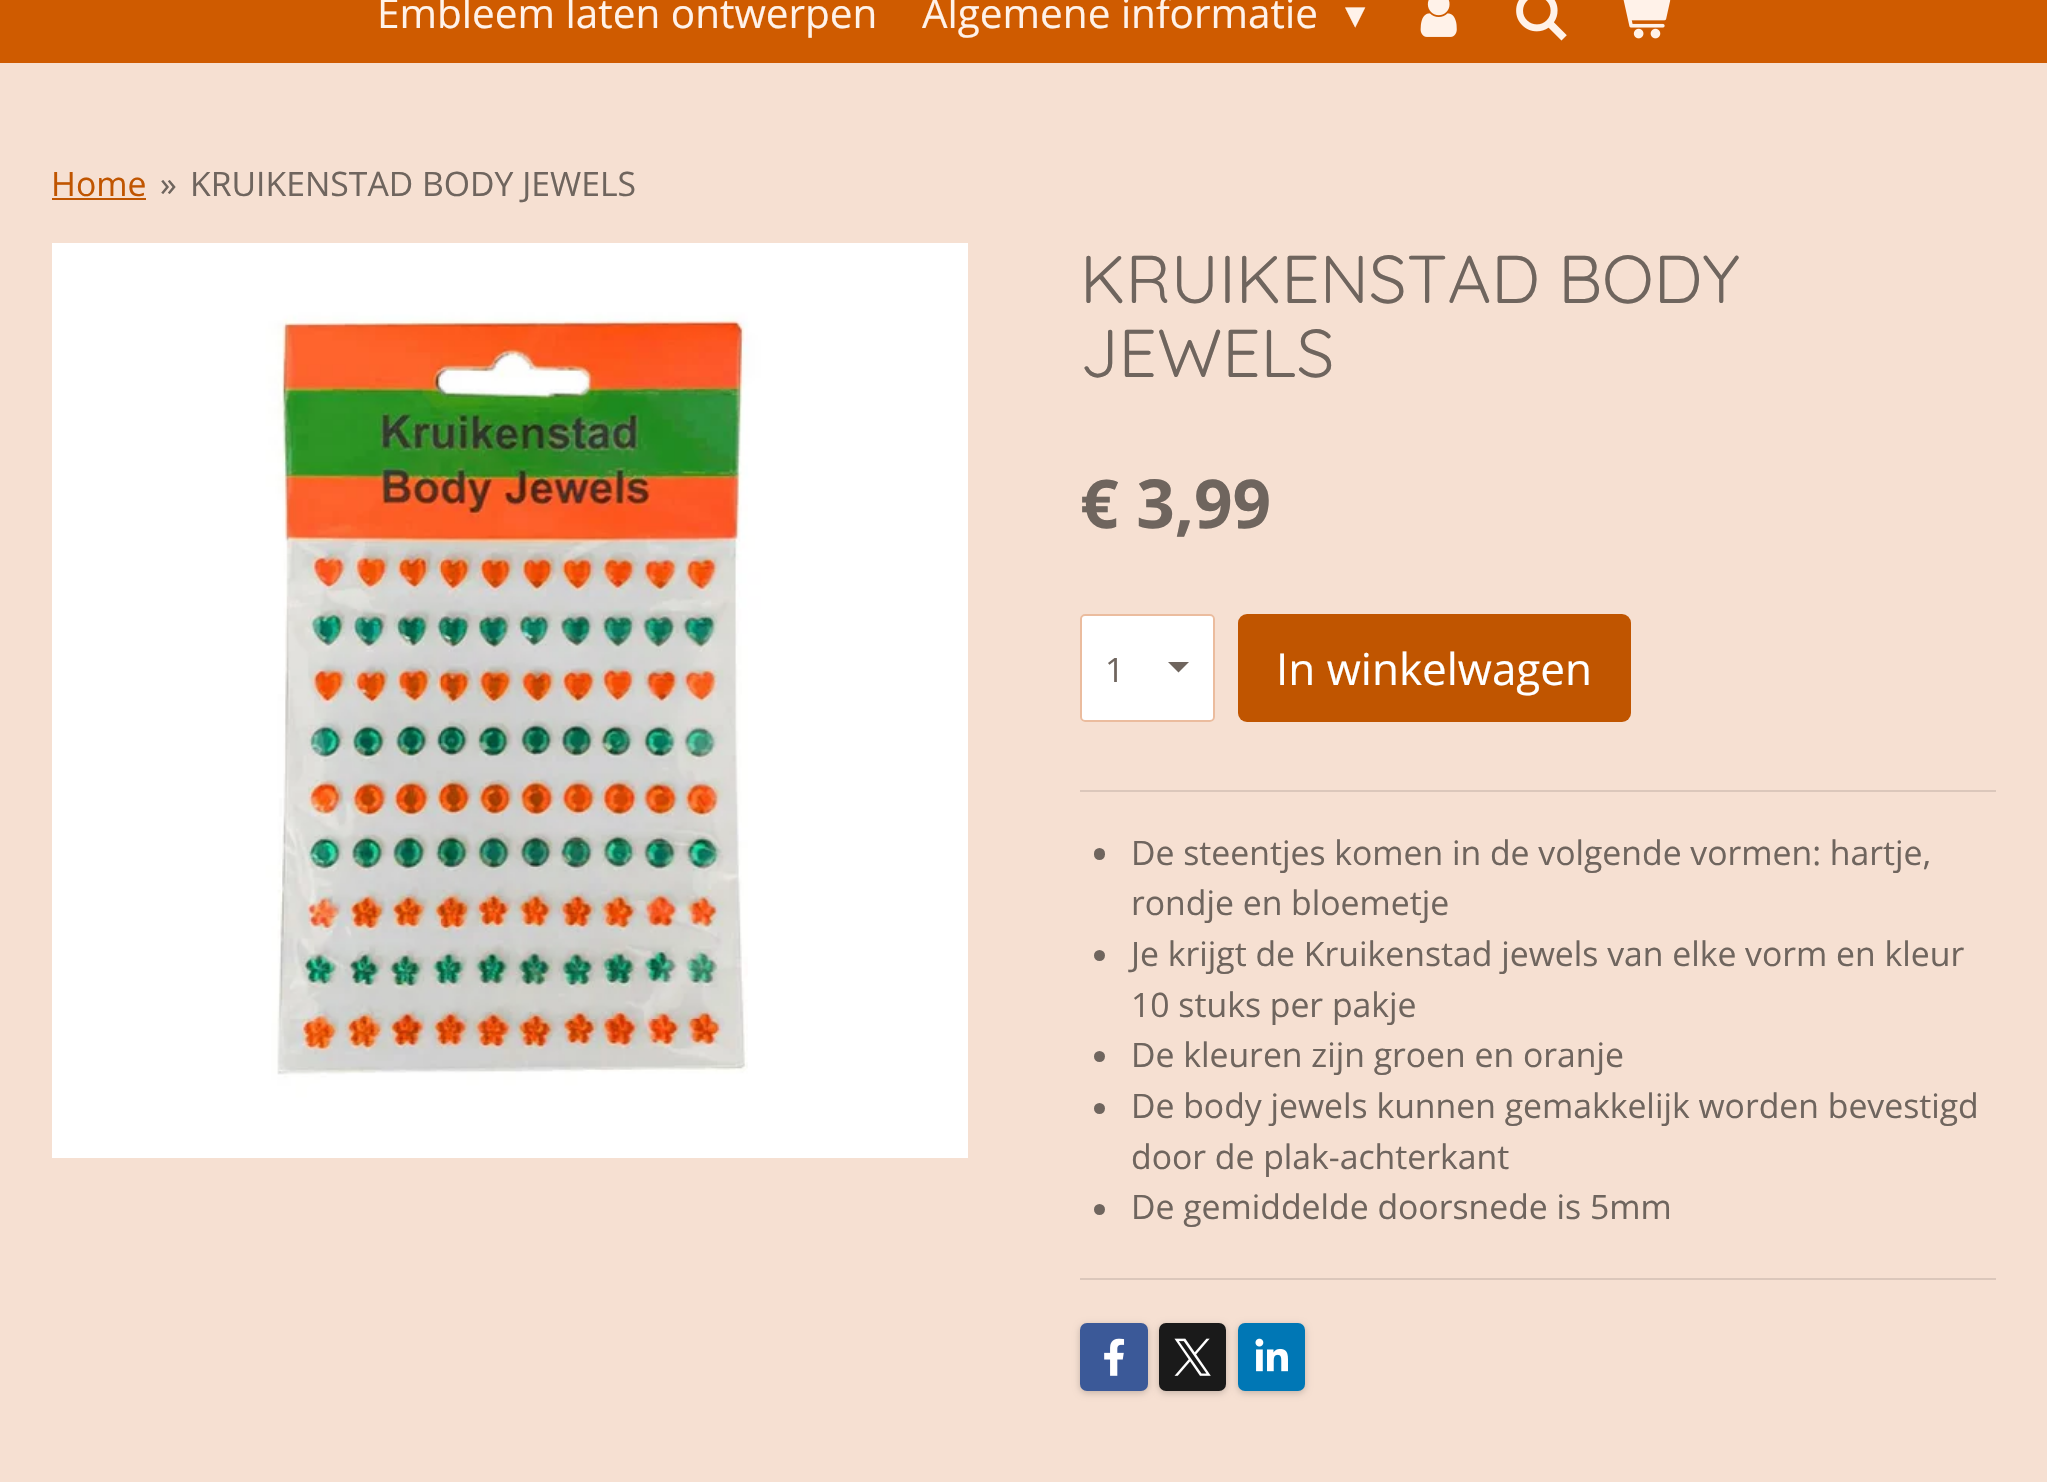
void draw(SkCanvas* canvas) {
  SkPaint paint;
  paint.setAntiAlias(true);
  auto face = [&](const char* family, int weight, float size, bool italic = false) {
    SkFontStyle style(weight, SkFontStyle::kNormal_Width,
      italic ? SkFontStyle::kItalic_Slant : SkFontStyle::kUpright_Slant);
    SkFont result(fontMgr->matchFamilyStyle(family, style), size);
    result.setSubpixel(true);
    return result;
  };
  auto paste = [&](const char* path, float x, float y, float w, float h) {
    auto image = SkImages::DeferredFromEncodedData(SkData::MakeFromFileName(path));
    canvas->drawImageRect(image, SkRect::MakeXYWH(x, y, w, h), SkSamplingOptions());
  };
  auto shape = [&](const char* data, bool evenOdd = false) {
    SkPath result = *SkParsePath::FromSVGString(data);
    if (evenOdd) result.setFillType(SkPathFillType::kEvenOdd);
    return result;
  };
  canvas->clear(0xffcf5b00);
  paste("img/1.png", 1420, 0, 37, 37);
  paste("img/2.png", 1516, 0, 51, 41);
  paste("img/3.png", 1623, 0, 48, 39);
  paint.setColor(0xfff6e0d2);
  canvas->drawRect(SkRect::MakeXYWH(0, 63, 2047, 1419), paint);
  paint.setColor(0xffc05500);
  canvas->drawRect(SkRect::MakeXYWH(52, 198, 94, 2), paint);
  paste("img/4.png", 52, 243, 916, 915);
  paint.setColor(0xffffffff);
  canvas->drawRoundRect(SkRect::MakeXYWH(1080, 614, 135, 108), 5, 5, paint);
  paint.setColor(0xff6f655e);
  canvas->drawPath(shape("M1178.5 672.5L1168 662H1189Z"), paint);
  paint.setStroke(true);
  paint.setStrokeWidth(2);
  paint.setColor(0x80d87a3d);
  canvas->drawRoundRect(SkRect::MakeXYWH(1081, 615, 133, 106), 4, 4, paint);
  paint.setStroke(false);
  paint.setColor(0xffc05500);
  canvas->drawRoundRect(SkRect::MakeXYWH(1238, 614, 393, 108), 9, 9, paint);
  paint.setColor(0xffdbc7bb);
  canvas->drawRect(SkRect::MakeXYWH(1080, 790, 916, 2), paint);
  paint.setColor(0xff6f655e);
  canvas->drawRoundRect(SkRect::MakeXYWH(1094, 848, 11, 12), 5.5f, 5.5f, paint);
  canvas->drawCircle(1099.5f, 955.5f, 5.5f, paint);
  canvas->drawCircle(1099.5f, 1056.5f, 5.5f, paint);
  canvas->drawCircle(1099.5f, 1108.5f, 5.5f, paint);
  canvas->drawCircle(1099.5f, 1209.5f, 5.5f, paint);
  paint.setColor(0xffdbc7bb);
  canvas->drawRect(SkRect::MakeXYWH(1080, 1278, 916, 2), paint);
  paint.setColor(0x33000000);
  paint.setMaskFilter(SkMaskFilter::MakeBlur(kNormal_SkBlurStyle, 3.5f));
  canvas->drawRoundRect(SkRect::MakeXYWH(1080, 1325, 68, 68), 7, 7, paint);
  paint.setMaskFilter(nullptr);
  paint.setColor(0xff3b5998);
  canvas->drawRoundRect(SkRect::MakeXYWH(1080, 1323, 68, 68), 7, 7, paint);
  paste("img/5.png", 1104, 1338, 21, 38);
  paint.setColor(0x33000000);
  paint.setMaskFilter(SkMaskFilter::MakeBlur(kNormal_SkBlurStyle, 3.5f));
  canvas->drawRoundRect(SkRect::MakeXYWH(1159, 1325, 67, 68), 7, 7, paint);
  paint.setMaskFilter(nullptr);
  paint.setColor(0xff1a1a1a);
  canvas->drawRoundRect(SkRect::MakeXYWH(1159, 1323, 67, 68), 7, 7, paint);
  paste("img/6.png", 1174, 1338, 37, 38);
  paint.setColor(0x33000000);
  paint.setMaskFilter(SkMaskFilter::MakeBlur(kNormal_SkBlurStyle, 3.5f));
  canvas->drawRoundRect(SkRect::MakeXYWH(1238, 1325, 67, 68), 7, 7, paint);
  paint.setMaskFilter(nullptr);
  paint.setColor(0xff0077b5);
  canvas->drawRoundRect(SkRect::MakeXYWH(1238, 1323, 67, 68), 7, 7, paint);
  paste("img/7.png", 1255, 1338, 33, 34);
  auto f0 = face("Open Sans", 400, 40.5f);
  paint.setColor(0xfffff2e9);
  canvas->drawString("Embleem laten ontwerpen", 377, 28, f0, paint);
  canvas->drawString("Algemene informatie", 922, 28, f0, paint);
  auto f1 = face("DejaVu Sans", 400, 40.5f);
  canvas->drawString("▾", 1345, 28, f1, paint);
  auto f2 = face("Open Sans", 400, 33.75f);
  paint.setColor(0xffc05500);
  canvas->drawString("Home", 51, 196, f2, paint);
  paint.setColor(0xff6f655e);
  canvas->drawString("»", 160, 196, f2, paint);
  canvas->drawString("KRUIKENSTAD BODY JEWELS", 190, 196, f2, paint);
  auto f3 = face("Quicksand", 400, 67.5f);
  canvas->drawString("KRUIKENSTAD BODY", 1080, 303, f3, paint);
  canvas->drawString("JEWELS", 1080, 377, f3, paint);
  auto f4 = face("Open Sans", 700, 67.5f);
  canvas->drawString("€ 3,99", 1080, 528, f4, paint);
  canvas->drawString("1", 1105, 682, f2, paint);
  auto f5 = face("Open Sans", 400, 44);
  paint.setColor(0xffffffff);
  canvas->drawString("In winkelwagen", 1276, 685, f5, paint);
  paint.setColor(0xff6f655e);
  {
    const struct { const char* s; float x, y; } items[] = {
      {"De steentjes komen in de volgende vormen: hartje,", 1131, 865},
      {"rondje en bloemetje", 1131, 915},
      {"Je krijgt de Kruikenstad jewels van elke vorm en kleur", 1131, 966},
      {"10 stuks per pakje", 1131, 1017},
      {"De kleuren zijn groen en oranje", 1131, 1067},
      {"De body jewels kunnen gemakkelijk worden bevestigd", 1131, 1118},
      {"door de plak-achterkant", 1131, 1169},
      {"De gemiddelde doorsnede is 5mm", 1131, 1219},
    };
    for (auto [s, x, y] : items) {
      canvas->drawString(s, x, y, f2, paint);
    }
  }
}
